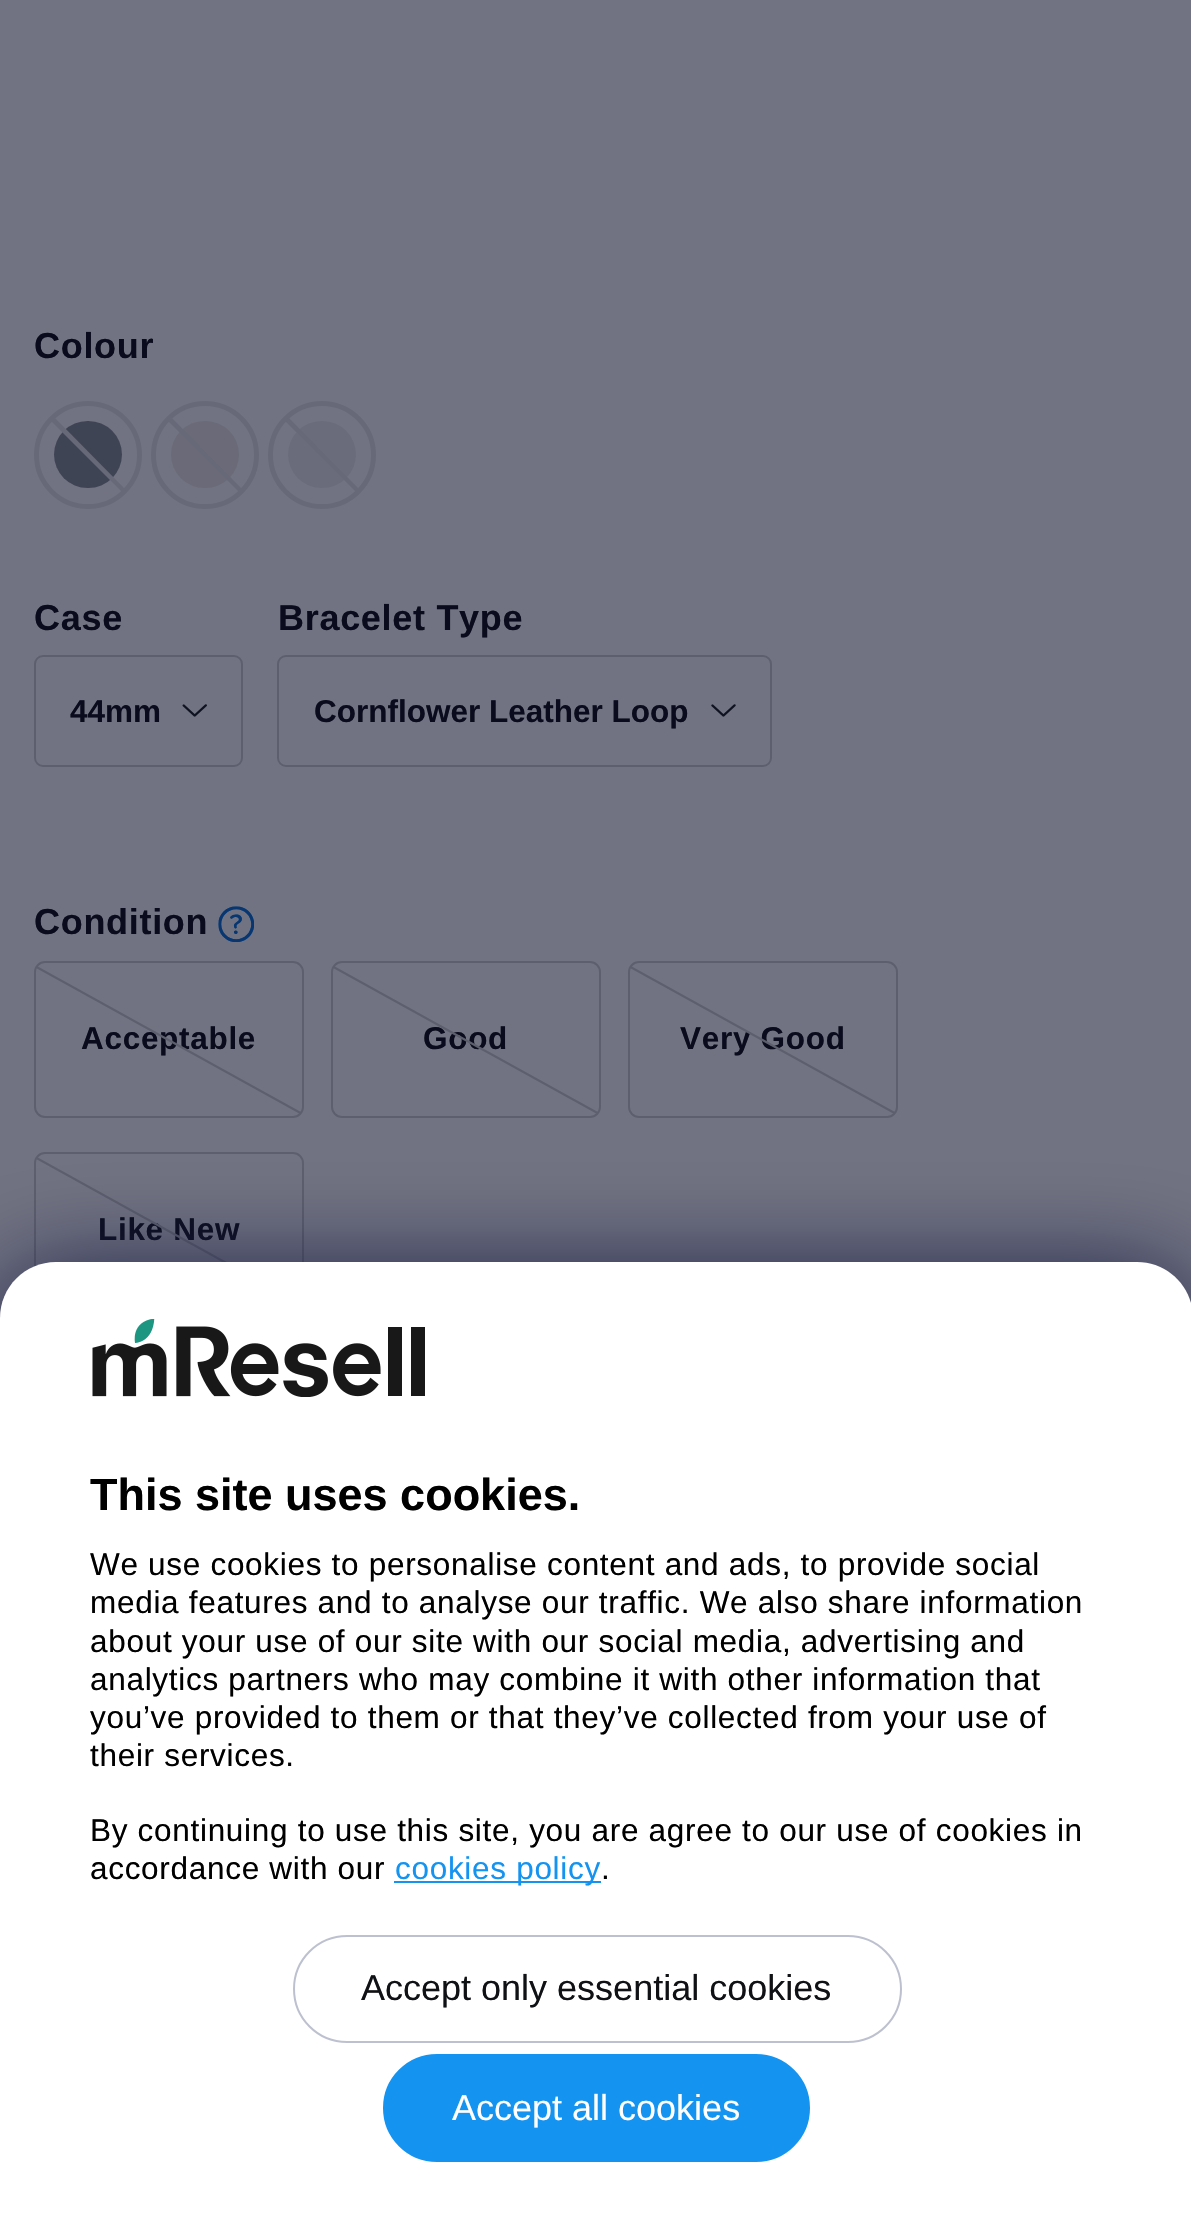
void draw(SkCanvas* canvas) {
  SkPaint paint;
  paint.setAntiAlias(true);
  auto face = [&](const char* family, int weight, float size, bool italic = false) {
    SkFontStyle style(weight, SkFontStyle::kNormal_Width,
      italic ? SkFontStyle::kItalic_Slant : SkFontStyle::kUpright_Slant);
    SkFont result(fontMgr->matchFamilyStyle(family, style), size);
    result.setSubpixel(true);
    return result;
  };
  auto writeSpaced = [&](const char* s, float x, float y, const SkFont& font, const SkPaint& ink, float letter, float word) {
    std::vector<SkGlyphID> glyphs(font.countText(s, strlen(s), SkTextEncoding::kUTF8));
    std::vector<float> xs(glyphs.size());
    font.textToGlyphs(s, strlen(s), SkTextEncoding::kUTF8, glyphs);
    font.getXPos(glyphs, xs, x);
    float extra = 0;
    for (size_t i = 0; i < glyphs.size(); i++) {
      xs[i] += extra;
      extra += letter + word * (glyphs[i] == font.unicharToGlyph(' '));
    }
    canvas->drawTextBlob(SkTextBlob::MakeFromPosHGlyphs(glyphs, xs, y, font), 0, 0, ink);
  };
  auto paste = [&](const char* path, float x, float y, float w, float h) {
    auto image = SkImages::DeferredFromEncodedData(SkData::MakeFromFileName(path));
    canvas->drawImageRect(image, SkRect::MakeXYWH(x, y, w, h), SkSamplingOptions());
  };
  auto shape = [&](const char* data, bool evenOdd = false) {
    SkPath result = *SkParsePath::FromSVGString(data);
    if (evenOdd) result.setFillType(SkPathFillType::kEvenOdd);
    return result;
  };
  canvas->clear(0xff717382);
  paint.setStroke(true);
  paint.setStrokeWidth(5);
  paint.setColor(0xff676978);
  canvas->drawCircle(88, 455, 51.5f, paint);
  paint.setStroke(false);
  paint.setColor(0xff3f4455);
  canvas->drawRoundRect(SkRect::MakeXYWH(54, 421, 68, 67), 33.5f, 33.5f, paint);
  paint.setColor(0xff676978);
  canvas->drawPath(shape("M53 416L126 490L123 493L50 420Z"), paint);
  paint.setStroke(true);
  canvas->drawCircle(205, 455, 51.5f, paint);
  paint.setStroke(false);
  paint.setColor(0xff6a6a78);
  canvas->drawRoundRect(SkRect::MakeXYWH(171, 421, 68, 67), 33.5f, 33.5f, paint);
  paint.setColor(0xff676978);
  canvas->drawPath(shape("M170 416L243 490L240 493L167 420Z"), paint);
  paint.setStroke(true);
  canvas->drawCircle(322, 455, 51.5f, paint);
  paint.setStroke(false);
  paint.setColor(0xff6a6c7b);
  canvas->drawRoundRect(SkRect::MakeXYWH(288, 421, 68, 67), 33.5f, 33.5f, paint);
  paint.setColor(0xff676978);
  canvas->drawPath(shape("M287 416L360 490L357 493L284 420Z"), paint);
  paint.setStroke(true);
  paint.setStrokeWidth(2);
  paint.setColor(0xff5d5f6e);
  canvas->drawRoundRect(SkRect::MakeXYWH(35, 656, 207, 110), 8, 8, paint);
  paste("img/1.png", 182, 704, 25, 13);
  canvas->drawRoundRect(SkRect::MakeXYWH(278, 656, 493, 110), 8, 8, paint);
  paste("img/2.png", 711, 704, 25, 13);
  paste("img/3.png", 218, 906, 36, 36);
  canvas->drawRoundRect(SkRect::MakeXYWH(35, 962, 268, 155), 10, 10, paint);
  canvas->drawRoundRect(SkRect::MakeXYWH(332, 962, 268, 155), 10, 10, paint);
  canvas->drawRoundRect(SkRect::MakeXYWH(629, 962, 268, 155), 10, 10, paint);
  canvas->drawRoundRect(SkRect::MakeXYWH(35, 1153, 268, 156), 10, 10, paint);
  auto f0 = face("Liberation Sans", 700, 36);
  paint.setStroke(false);
  paint.setColor(0xff0a0c1d);
  writeSpaced("Colour", 34, 358, f0, paint, 0.7f, 0);
  writeSpaced("Case", 34, 630, f0, paint, 0.7f, 0);
  auto f1 = face("Liberation Sans", 700, 31.5f);
  canvas->drawString("44mm", 70, 722, f1, paint);
  writeSpaced("Bracelet Type", 278, 630, f0, paint, 0.7f, 0);
  canvas->drawString("Cornflower Leather Loop", 314, 722, f1, paint);
  writeSpaced("Condition", 34, 934, f0, paint, 0.7f, 0);
  writeSpaced("Acceptable", 81, 1049, f1, paint, 0.7f, 0);
  paint.setColor(0xff5d5f6e);
  canvas->drawPath(shape("M37 966L301 1112L300 1114L36 968Z"), paint);
  paint.setColor(0xff0a0c1d);
  writeSpaced("Good", 423, 1049, f1, paint, 0.7f, 0);
  paint.setColor(0xff5d5f6e);
  canvas->drawPath(shape("M334 966L598 1112L597 1114L333 968Z"), paint);
  paint.setColor(0xff0a0c1d);
  writeSpaced("Very Good", 680, 1049, f1, paint, 0.7f, 0);
  paint.setColor(0xff5d5f6e);
  canvas->drawPath(shape("M631 966L895 1112L894 1114L630 968Z"), paint);
  paint.setColor(0xff0a0c1d);
  writeSpaced("Like New", 98, 1240, f1, paint, 0.7f, 0);
  paint.setColor(0xff5d5f6e);
  canvas->drawPath(shape("M37 1157L301 1303L300 1305L36 1159Z"), paint);
  paint.setColor(0xff191e44);
  paint.setMaskFilter(SkMaskFilter::MakeBlur(kNormal_SkBlurStyle, 49.5f));
  canvas->drawRoundRect(SkRect::MakeXYWH(0, 1271, 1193, 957), 56, 56, paint);
  paint.setMaskFilter(nullptr);
  paint.setColor(0xffffffff);
  canvas->drawPath(shape("M56 1262H1137C1168 1262 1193 1287 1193 1318V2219H0V1318C0 1287 25 1262 56 1262Z"), paint);
  paste("img/4.png", 92, 1319, 333, 78);
  auto f2 = face("Liberation Sans", 700, 45);
  paint.setColor(0xff000000);
  canvas->drawString("This site uses cookies.", 90, 1510, f2, paint);
  auto f3 = face("Liberation Sans", 400, 31.5f);
  {
    const struct { const char* s; float x, y; } items[] = {
      {"We use cookies to personalise content and ads, to provide social", 90, 1575},
      {"media features and to analyse our traffic. We also share information", 90, 1613},
      {"about your use of our site with our social media, advertising and", 90, 1652},
      {"analytics partners who may combine it with other information that", 90, 1690},
      {"you’ve provided to them or that they’ve collected from your use of", 90, 1728},
      {"their services.", 90, 1766},
      {"By continuing to use this site, you are agree to our use of cookies in", 90, 1841},
      {"accordance with our", 90, 1879},
    };
    for (auto [s, x, y] : items) {
      writeSpaced(s, x, y, f3, paint, 0.7f, 0);
    }
  }
  paint.setColor(0xff1493f0);
  canvas->drawRect(SkRect::MakeXYWH(394, 1881, 207, 2), paint);
  writeSpaced("cookies policy", 395, 1879, f3, paint, 0.7f, 0);
  paint.setColor(0xff000000);
  writeSpaced(".", 601, 1879, f3, paint, 0.7f, 0);
  paint.setStroke(true);
  paint.setColor(0xffbdc1cf);
  canvas->drawRoundRect(SkRect::MakeXYWH(294, 1936, 607, 106), 53, 53, paint);
  auto f4 = face("Liberation Sans", 400, 36);
  paint.setStroke(false);
  paint.setColor(0xff101114);
  canvas->drawString("Accept only essential cookies", 361, 2000, f4, paint);
  paint.setColor(0xff1493f0);
  canvas->drawRoundRect(SkRect::MakeXYWH(384, 2055, 425, 106), 53, 53, paint);
  paint.setStroke(true);
  canvas->drawRoundRect(SkRect::MakeXYWH(384, 2055, 425, 106), 53, 53, paint);
  paint.setStroke(false);
  paint.setColor(0xffffffff);
  canvas->drawString("Accept all cookies", 452, 2120, f4, paint);
}
